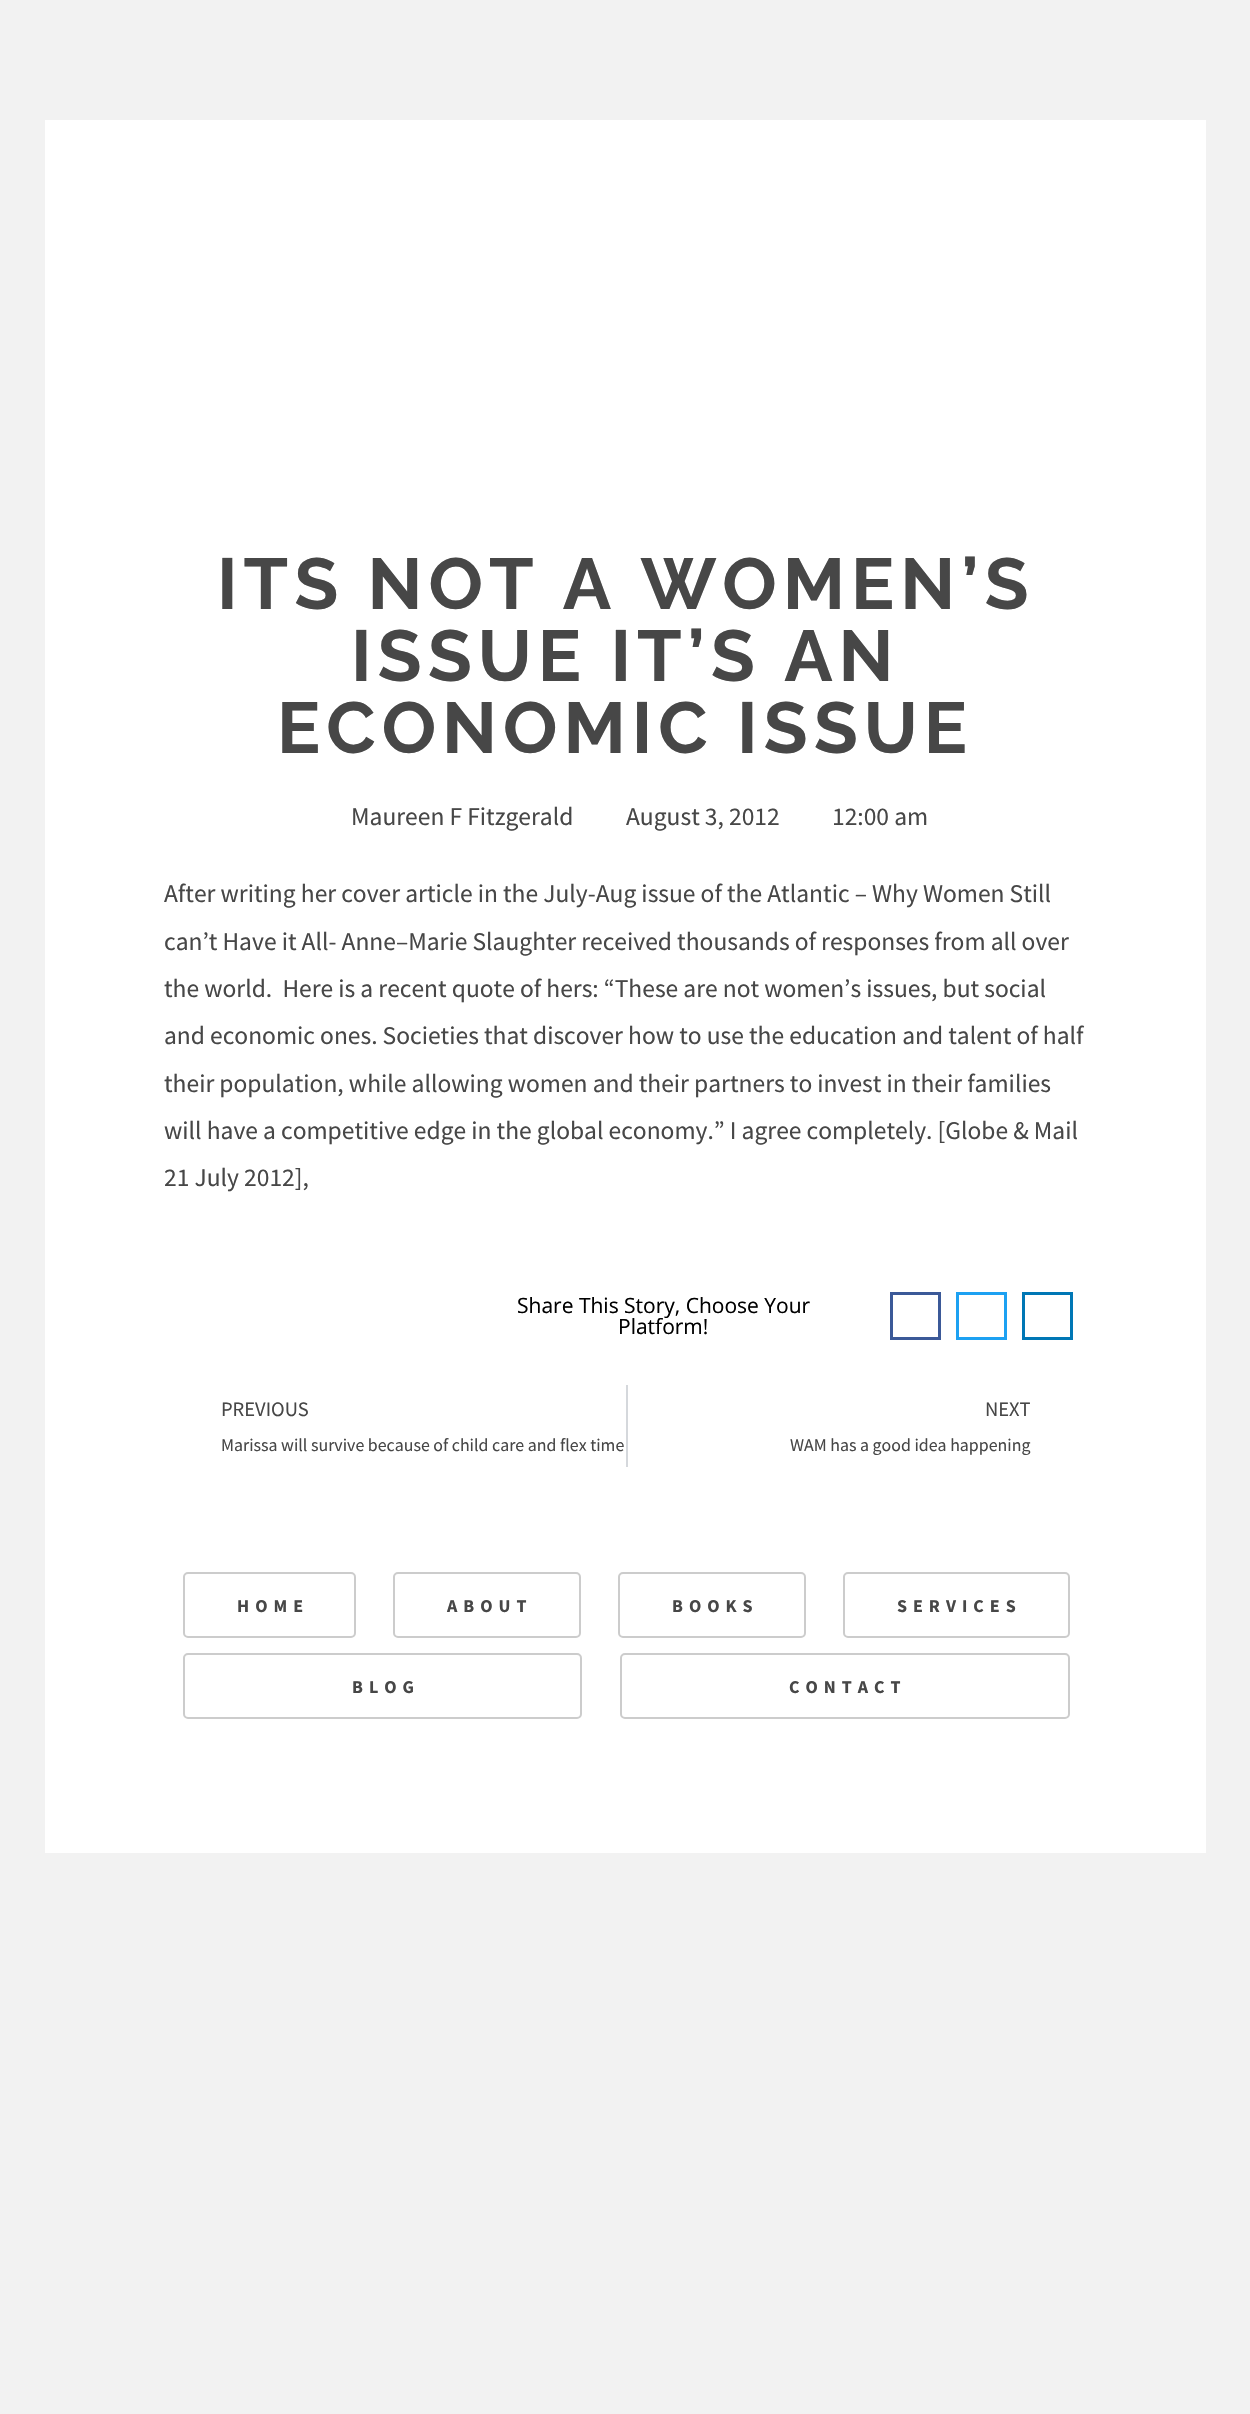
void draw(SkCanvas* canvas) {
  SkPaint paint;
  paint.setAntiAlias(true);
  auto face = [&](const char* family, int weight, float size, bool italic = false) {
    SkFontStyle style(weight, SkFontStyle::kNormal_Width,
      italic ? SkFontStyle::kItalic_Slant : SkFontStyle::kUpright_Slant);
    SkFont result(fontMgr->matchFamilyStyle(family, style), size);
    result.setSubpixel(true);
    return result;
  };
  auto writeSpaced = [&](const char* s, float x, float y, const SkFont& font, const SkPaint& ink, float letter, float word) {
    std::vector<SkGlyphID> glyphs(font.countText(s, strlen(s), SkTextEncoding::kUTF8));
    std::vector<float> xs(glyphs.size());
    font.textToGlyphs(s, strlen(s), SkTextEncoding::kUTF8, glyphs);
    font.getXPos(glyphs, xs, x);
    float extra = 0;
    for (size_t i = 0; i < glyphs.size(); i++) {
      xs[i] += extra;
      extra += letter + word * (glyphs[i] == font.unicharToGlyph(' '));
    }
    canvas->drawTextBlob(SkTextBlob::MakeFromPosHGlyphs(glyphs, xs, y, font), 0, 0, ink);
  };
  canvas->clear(0xfff2f2f2);
  paint.setColor(0xffffffff);
  canvas->drawRect(SkRect::MakeXYWH(45, 120, 1161, 1733), paint);
  paint.setStroke(true);
  paint.setStrokeWidth(3);
  paint.setColor(0xff3b5998);
  canvas->drawRect(SkRect::MakeXYWH(891.5f, 1293.5f, 48, 45), paint);
  paint.setColor(0xff1da1f2);
  canvas->drawRect(SkRect::MakeXYWH(957.5f, 1293.5f, 48, 45), paint);
  paint.setColor(0xff0077b5);
  canvas->drawRect(SkRect::MakeXYWH(1023.5f, 1293.5f, 48, 45), paint);
  paint.setStroke(false);
  paint.setColor(0xffd5d8dc);
  canvas->drawRect(SkRect::MakeXYWH(626, 1385, 2, 82), paint);
  paint.setStroke(true);
  paint.setStrokeWidth(2);
  paint.setColor(0xffcccccc);
  canvas->drawRoundRect(SkRect::MakeXYWH(184, 1573, 171, 64), 4, 4, paint);
  canvas->drawRoundRect(SkRect::MakeXYWH(394, 1573, 186, 64), 4, 4, paint);
  canvas->drawRoundRect(SkRect::MakeXYWH(619, 1573, 186, 64), 4, 4, paint);
  canvas->drawRoundRect(SkRect::MakeXYWH(844, 1573, 225, 64), 4, 4, paint);
  canvas->drawRoundRect(SkRect::MakeXYWH(184, 1654, 397, 64), 4, 4, paint);
  canvas->drawRoundRect(SkRect::MakeXYWH(621, 1654, 448, 64), 4, 4, paint);
  auto f0 = face("Raleway", 700, 72);
  paint.setStroke(false);
  paint.setColor(0xff474747);
  {
    const struct { const char* s; float x, y; } items[] = {
      {"ITS NOT A WOMEN’S", 217, 609},
      {"ISSUE IT’S AN", 351, 681},
      {"ECONOMIC ISSUE", 277, 753},
    };
    for (auto [s, x, y] : items) {
      writeSpaced(s, x, y, f0, paint, 6, 0);
    }
  }
  auto f1 = face("Source Sans Pro", 400, 25.5f);
  {
    const struct { const char* s; float x, y; } items[] = {
      {"Maureen F Fitzgerald", 351, 825},
      {"August 3, 2012", 626, 825},
      {"12:00 am", 832, 825},
      {"After writing her cover article in the July-Aug issue of the Atlantic – Why Women Still", 164, 902},
      {"can’t Have it All- Anne–Marie Slaughter received thousands of responses from all over", 164, 950},
      {"the world.  Here is a recent quote of hers: “These are not women’s issues, but social", 164, 997},
      {"and economic ones. Societies that discover how to use the education and talent of half", 164, 1044},
      {"their population, while allowing women and their partners to invest in their families", 164, 1092},
      {"will have a competitive edge in the global economy.” I agree completely. [Globe & Mail", 164, 1139},
      {"21 July 2012],", 164, 1186},
    };
    for (auto [s, x, y] : items) {
      canvas->drawString(s, x, y, f1, paint);
    }
  }
  auto f2 = face("Open Sans", 400, 21);
  paint.setColor(0xff000000);
  canvas->drawString("Share This Story, Choose Your", 517, 1313, f2, paint);
  canvas->drawString("Platform!", 618, 1334, f2, paint);
  auto f3 = face("Source Sans Pro", 400, 20.5f);
  paint.setColor(0xff474747);
  canvas->drawString("PREVIOUS", 221, 1416, f3, paint);
  auto f4 = face("Source Sans Pro", 400, 17.85f);
  canvas->drawString("Marissa will survive because of child care and flex time", 221, 1451, f4, paint);
  canvas->drawString("NEXT", 985, 1416, f3, paint);
  canvas->drawString("WAM has a good idea happening", 790, 1451, f4, paint);
  auto f5 = face("Source Sans Pro", 700, 18);
  {
    const struct { const char* s; float x, y; } items[] = {
      {"HOME", 237, 1612},
      {"ABOUT", 447, 1612},
      {"BOOKS", 672, 1612},
      {"SERVICES", 897, 1612},
      {"BLOG", 352, 1693},
      {"CONTACT", 789, 1693},
    };
    for (auto [s, x, y] : items) {
      writeSpaced(s, x, y, f5, paint, 6, 0);
    }
  }
}
